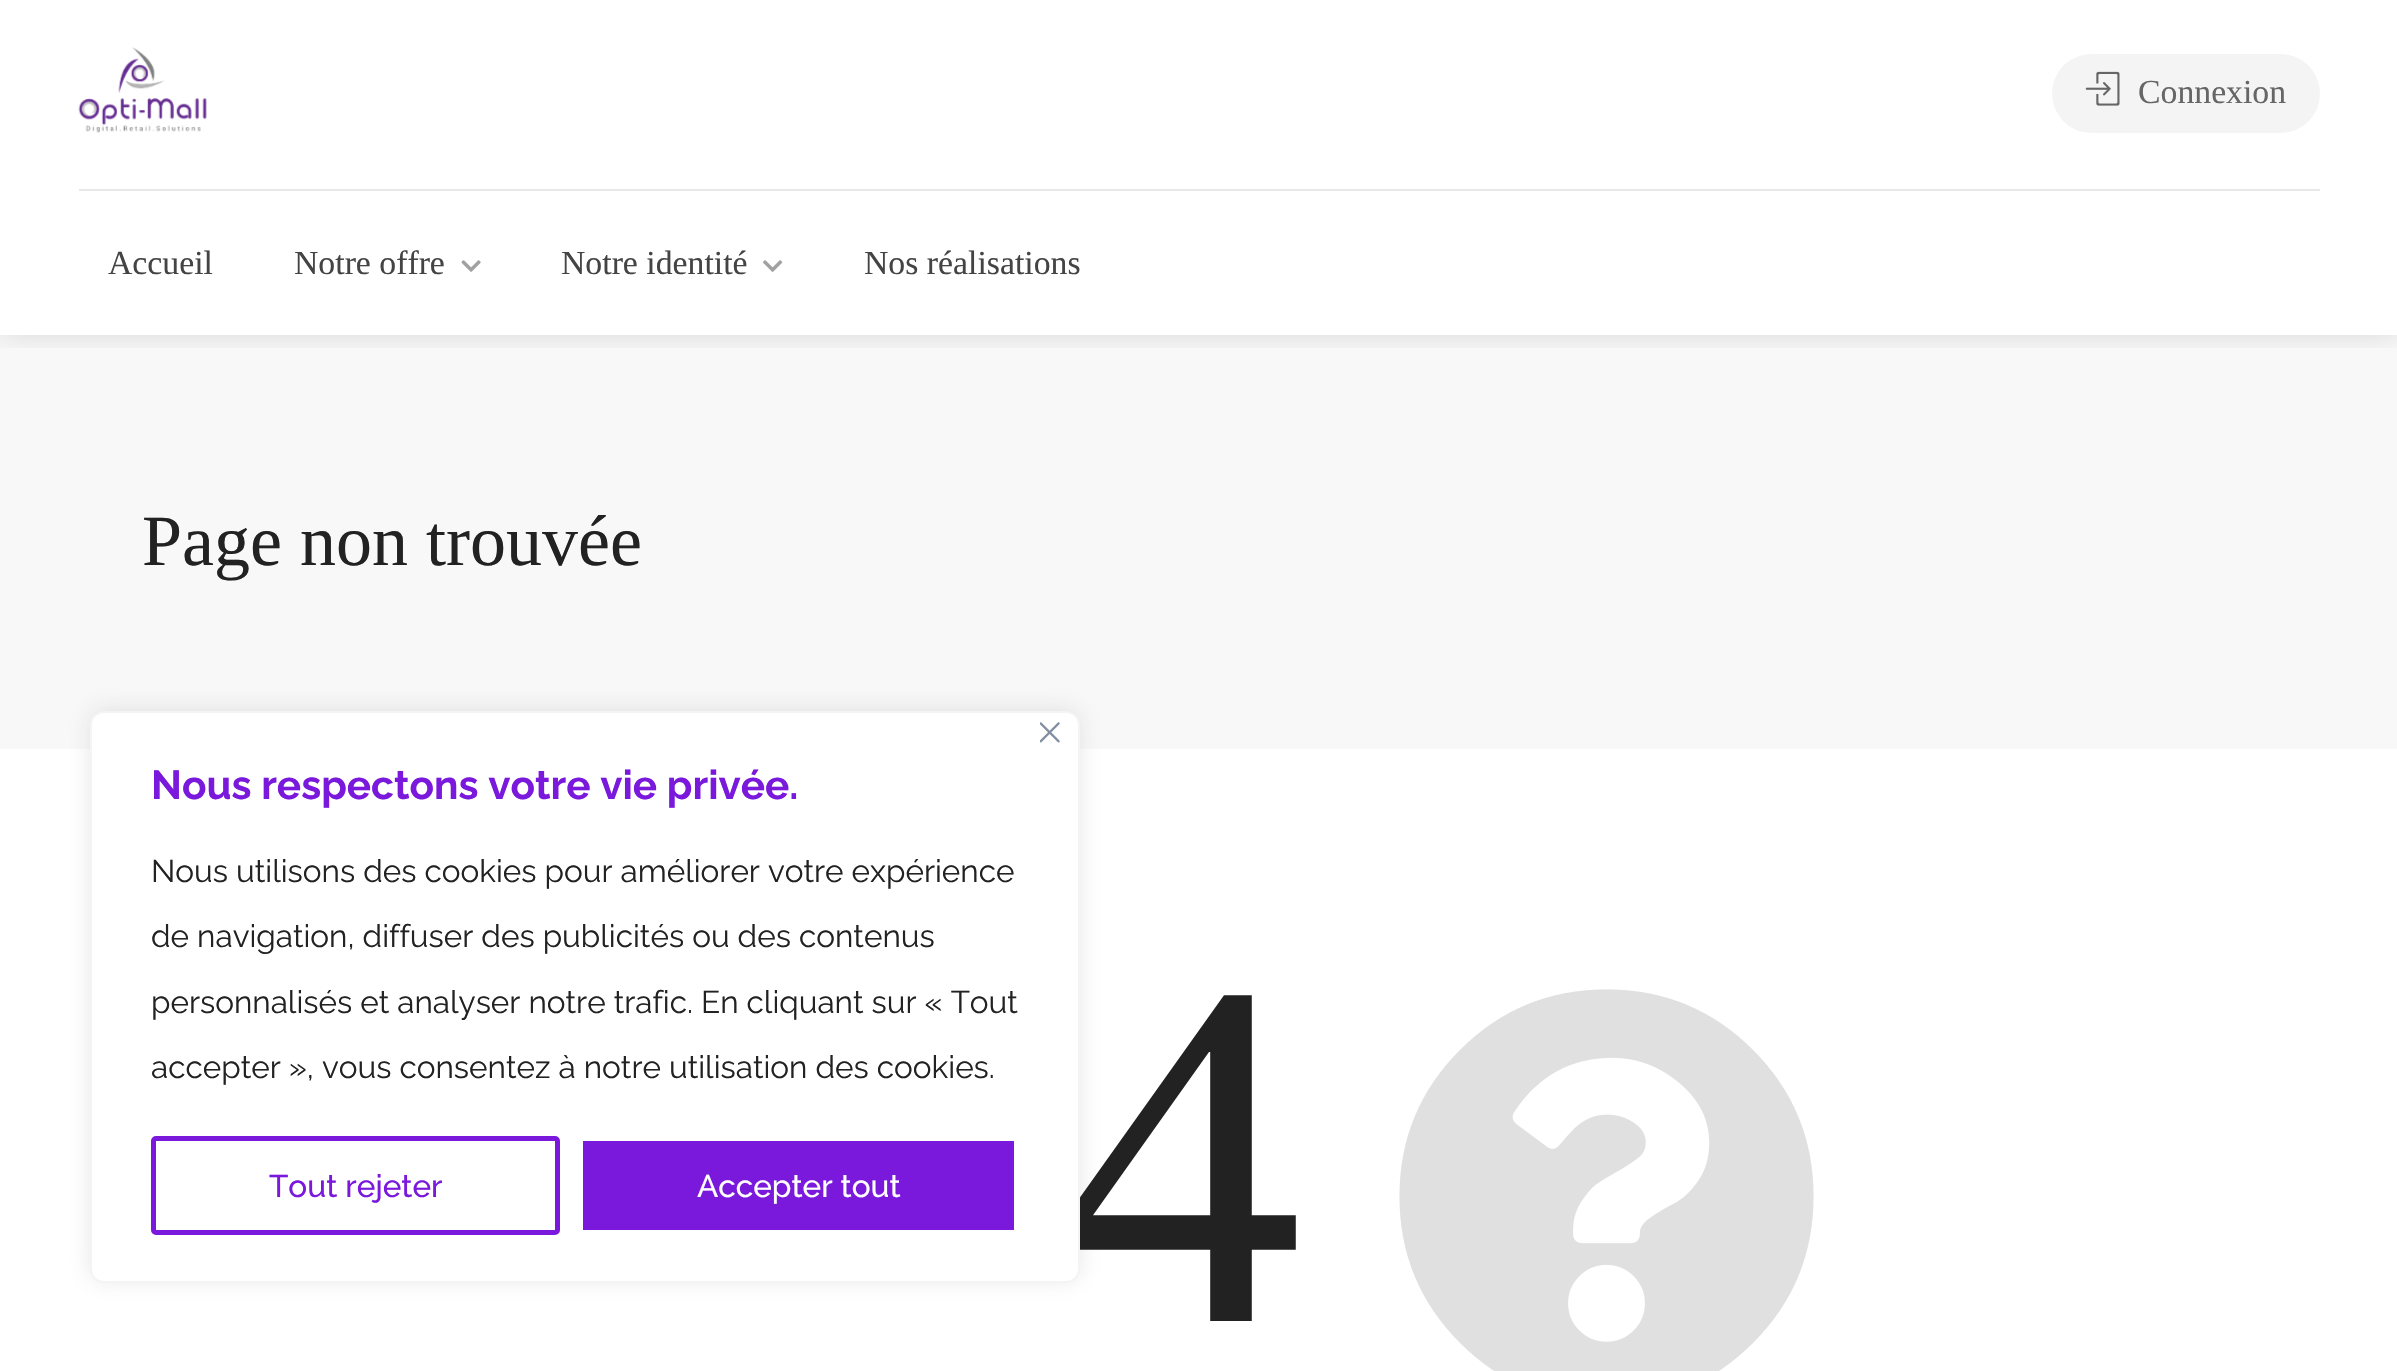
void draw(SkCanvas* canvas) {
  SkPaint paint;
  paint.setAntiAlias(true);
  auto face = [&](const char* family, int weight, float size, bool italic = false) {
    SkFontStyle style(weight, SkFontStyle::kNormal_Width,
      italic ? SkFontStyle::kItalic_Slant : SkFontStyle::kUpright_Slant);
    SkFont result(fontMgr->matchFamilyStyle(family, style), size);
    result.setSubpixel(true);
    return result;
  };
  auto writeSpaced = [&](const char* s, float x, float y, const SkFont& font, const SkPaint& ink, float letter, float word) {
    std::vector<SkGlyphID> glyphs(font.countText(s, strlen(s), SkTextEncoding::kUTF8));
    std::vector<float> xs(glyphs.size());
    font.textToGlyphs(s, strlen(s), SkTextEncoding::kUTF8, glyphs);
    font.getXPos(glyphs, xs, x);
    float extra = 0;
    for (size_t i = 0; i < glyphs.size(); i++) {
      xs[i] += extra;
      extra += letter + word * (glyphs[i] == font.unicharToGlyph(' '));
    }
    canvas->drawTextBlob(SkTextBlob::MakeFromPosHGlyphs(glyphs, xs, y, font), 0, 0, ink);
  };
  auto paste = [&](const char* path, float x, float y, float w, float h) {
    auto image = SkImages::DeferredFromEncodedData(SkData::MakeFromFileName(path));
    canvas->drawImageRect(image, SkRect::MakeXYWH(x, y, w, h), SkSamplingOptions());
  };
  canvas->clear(0xffffffff);
  paint.setColor(0xfff8f8f8);
  canvas->drawRect(SkRect::MakeXYWH(0, 335, 2397, 414), paint);
  canvas->save();
  canvas->clipRect(SkRect::MakeXYWH(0, 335, 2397, 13));
  paint.setColor(0x1f000000);
  paint.setMaskFilter(SkMaskFilter::MakeBlur(kNormal_SkBlurStyle, 13.5f));
  canvas->drawRect(SkRect::MakeXYWH(0, 0, 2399, 335), paint);
  paint.setMaskFilter(nullptr);
  canvas->restore();
  paint.setColor(0xfff4f4f4);
  canvas->drawRoundRect(SkRect::MakeXYWH(2052, 54, 268, 79), 39.5f, 39.5f, paint);
  paste("img/1.png", 2085, 71, 35, 35);
  paste("img/2.png", 78, 47, 129, 86);
  paint.setColor(0xffe8e8e8);
  canvas->drawRect(SkRect::MakeXYWH(79, 189, 2241, 2), paint);
  paste("img/3.png", 461, 260, 20, 12);
  paste("img/4.png", 763, 260, 20, 12);
  paste("img/5.png", 1399, 989, 415, 382);
  paint.setColor(0x4dacabab);
  paint.setMaskFilter(SkMaskFilter::MakeBlur(kNormal_SkBlurStyle, 11));
  canvas->drawRoundRect(SkRect::MakeXYWH(90, 709, 990, 571), 14, 14, paint);
  paint.setMaskFilter(nullptr);
  auto f0 = face("Liberation Serif", 400, 33.75f);
  paint.setColor(0xff666666);
  canvas->drawString("Connexion", 2138, 103, f0, paint);
  paint.setColor(0xff444444);
  {
    const struct { const char* s; float x, y; } items[] = {
      {"Accueil", 108, 274},
      {"Notre offre", 294, 274},
      {"Notre identité", 561, 274},
      {"Nos réalisations", 864, 274},
    };
    for (auto [s, x, y] : items) {
      canvas->drawString(s, x, y, f0, paint);
    }
  }
  auto f1 = face("Liberation Serif", 400, 72);
  paint.setColor(0xff222222);
  canvas->drawString("Page non trouvée", 142, 565, f1, paint);
  auto f2 = face("Liberation Serif", 400, 495);
  writeSpaced("4", 1056, 1321, f2, paint, -18, 0);
  paint.setColor(0xffffffff);
  canvas->drawRoundRect(SkRect::MakeXYWH(91, 712, 988, 570), 13, 13, paint);
  paint.setStroke(true);
  paint.setStrokeWidth(2);
  paint.setColor(0xfff4f4f4);
  canvas->drawRoundRect(SkRect::MakeXYWH(91, 712, 988, 570), 13, 13, paint);
  paste("img/6.png", 1040, 722, 20, 21);
  auto f3 = face("Raleway", 700, 40.5f);
  paint.setStroke(false);
  paint.setColor(0xff7a18dc);
  canvas->drawString("Nous respectons votre vie privée.", 151, 799, f3, paint);
  auto f4 = face("Raleway", 100, 31.5f);
  paint.setColor(0xff222222);
  {
    const struct { const char* s; float x, y; } items[] = {
      {"Nous utilisons des cookies pour améliorer votre expérience", 151, 882},
      {"de navigation, diffuser des publicités ou des contenus", 151, 947},
      {"personnalisés et analyser notre trafic. En cliquant sur « Tout", 151, 1013},
      {"accepter », vous consentez à notre utilisation des cookies.", 151, 1078},
    };
    for (auto [s, x, y] : items) {
      canvas->drawString(s, x, y, f4, paint);
    }
  }
  paint.setStroke(true);
  paint.setStrokeWidth(5);
  paint.setColor(0xff7a18dc);
  canvas->drawRoundRect(SkRect::MakeXYWH(153.5f, 1138.5f, 404, 94), 2.5f, 2.5f, paint);
  auto f5 = face("Raleway", 500, 31.5f);
  paint.setStroke(false);
  canvas->drawString("Tout rejeter", 269, 1197, f5, paint);
  canvas->drawRoundRect(SkRect::MakeXYWH(580.5f, 1138.5f, 436, 94), 2.5f, 2.5f, paint);
  paint.setStroke(true);
  paint.setColor(0xffffffff);
  canvas->drawRoundRect(SkRect::MakeXYWH(580.5f, 1138.5f, 436, 94), 2.5f, 2.5f, paint);
  paint.setStroke(false);
  canvas->drawString("Accepter tout", 697, 1197, f5, paint);
}
